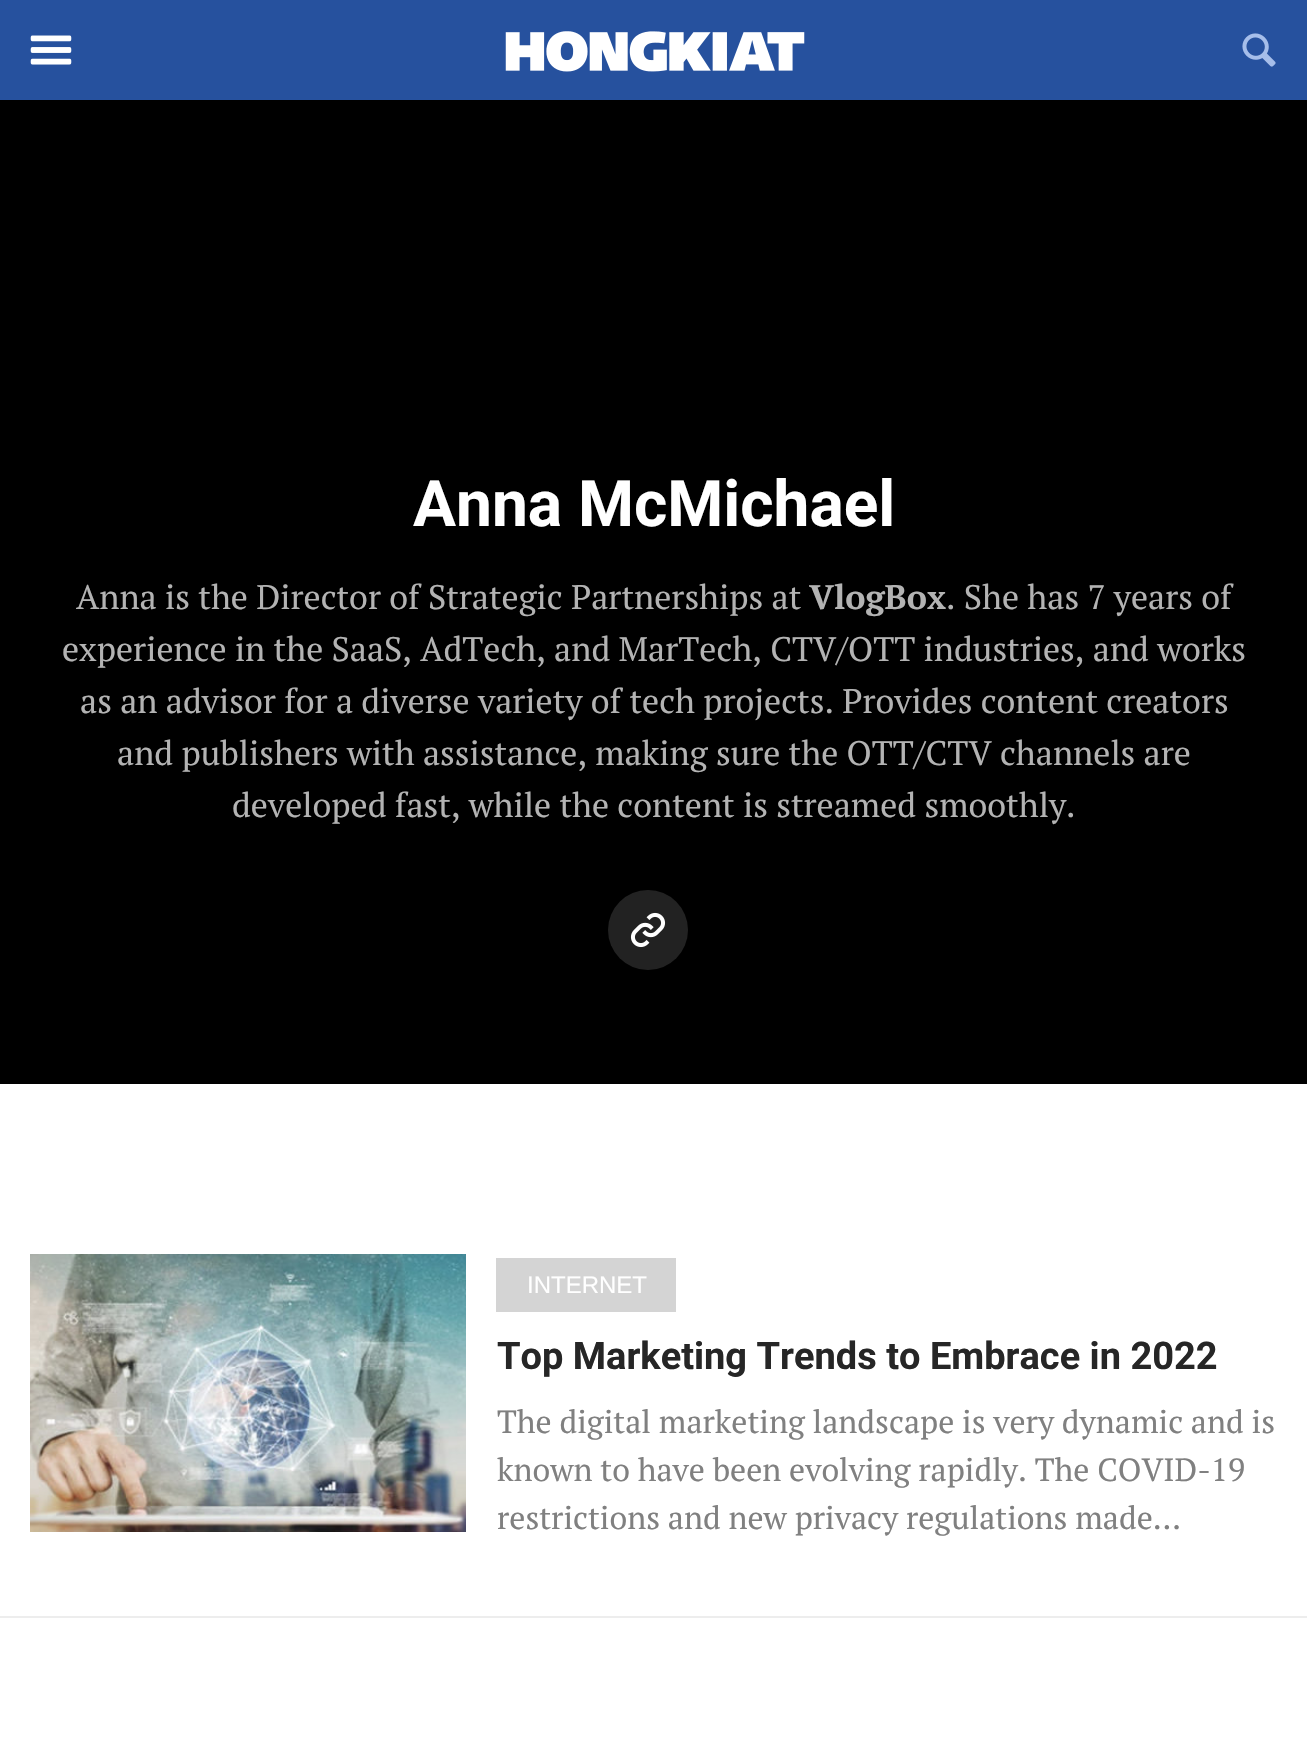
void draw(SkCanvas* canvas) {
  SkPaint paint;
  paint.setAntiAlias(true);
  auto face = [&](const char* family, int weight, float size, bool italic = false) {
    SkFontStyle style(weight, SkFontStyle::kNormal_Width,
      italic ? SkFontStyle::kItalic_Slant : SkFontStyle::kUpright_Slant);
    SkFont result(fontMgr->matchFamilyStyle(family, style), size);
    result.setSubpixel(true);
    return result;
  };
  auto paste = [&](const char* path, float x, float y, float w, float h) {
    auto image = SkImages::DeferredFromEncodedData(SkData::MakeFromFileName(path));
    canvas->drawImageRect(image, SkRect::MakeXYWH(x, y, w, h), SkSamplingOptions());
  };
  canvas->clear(0xffffffff);
  paint.setColor(0xff26519e);
  canvas->drawRect(SkRect::MakeXYWH(0, 0, 1307, 100), paint);
  paste("img/1.png", 30, 35, 42, 30);
  paste("img/2.png", 505, 31, 300, 41);
  paste("img/3.png", 1242, 33, 34, 34);
  paint.setColor(0xff000000);
  canvas->drawRect(SkRect::MakeXYWH(0, 100, 1307, 984), paint);
  paint.setColor(0xff222222);
  canvas->drawCircle(648, 930, 40, paint);
  paste("img/4.png", 630, 912, 36, 36);
  paint.setColor(0xffededed);
  canvas->drawRect(SkRect::MakeXYWH(0, 1616, 1307, 2), paint);
  paste("img/5.png", 30, 1254, 436, 278);
  paint.setColor(0xffd4d4d4);
  canvas->drawRect(SkRect::MakeXYWH(496, 1258, 180, 54), paint);
  auto f0 = face("Roboto", 700, 64);
  paint.setColor(0xffffffff);
  canvas->drawString("Anna McMichael", 413, 526, f0, paint);
  auto f1 = face("PT Serif", 400, 34);
  paint.setColor(0xffb3b3b3);
  canvas->drawString("Anna is the Director of Strategic Partnerships at", 76, 609, f1, paint);
  auto f2 = face("PT Serif", 700, 34);
  canvas->drawString("VlogBox", 809, 609, f2, paint);
  {
    const struct { const char* s; float x, y; } items[] = {
      {". She has 7 years of", 946, 609},
      {"experience in the SaaS, AdTech, and MarTech, CTV/OTT industries, and works", 62, 661},
      {"as an advisor for a diverse variety of tech projects. Provides content creators", 80, 713},
      {"and publishers with assistance, making sure the OTT/CTV channels are", 117, 765},
      {"developed fast, while the content is streamed smoothly.", 232, 817},
    };
    for (auto [s, x, y] : items) {
      canvas->drawString(s, x, y, f1, paint);
    }
  }
  auto f3 = face("Liberation Sans", 400, 24);
  paint.setColor(0xffffffff);
  canvas->drawString("INTERNET", 527, 1293, f3, paint);
  auto f4 = face("Roboto", 700, 38);
  paint.setColor(0xff262626);
  canvas->drawString("Top Marketing Trends to Embrace in 2022", 497, 1369, f4, paint);
  auto f5 = face("PT Serif", 400, 32);
  paint.setColor(0xff808080);
  {
    const struct { const char* s; float x, y; } items[] = {
      {"The digital marketing landscape is very dynamic and is", 497, 1433},
      {"known to have been evolving rapidly. The COVID-19", 497, 1481},
      {"restrictions and new privacy regulations made…", 497, 1529},
    };
    for (auto [s, x, y] : items) {
      canvas->drawString(s, x, y, f5, paint);
    }
  }
}
